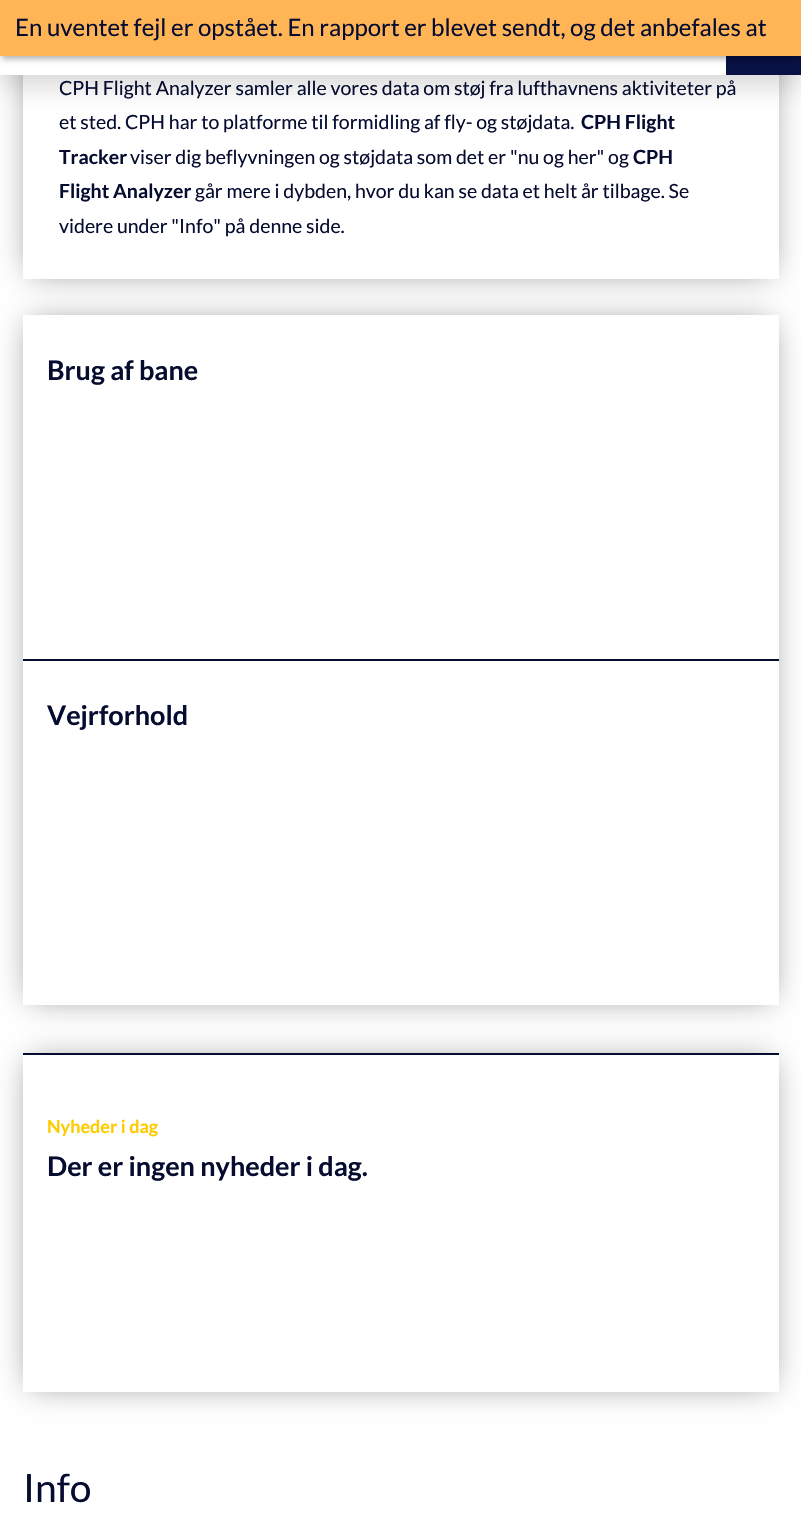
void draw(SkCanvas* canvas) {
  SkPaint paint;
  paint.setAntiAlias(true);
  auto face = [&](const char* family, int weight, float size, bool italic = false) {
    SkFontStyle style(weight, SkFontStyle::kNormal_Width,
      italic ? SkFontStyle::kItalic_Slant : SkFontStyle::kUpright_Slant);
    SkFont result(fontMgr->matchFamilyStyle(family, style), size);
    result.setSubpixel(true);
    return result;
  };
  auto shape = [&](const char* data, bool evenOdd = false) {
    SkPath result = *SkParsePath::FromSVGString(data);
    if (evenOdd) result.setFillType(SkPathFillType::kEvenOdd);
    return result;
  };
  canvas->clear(0xffffffff);
  paint.setColor(0x26000000);
  paint.setMaskFilter(SkMaskFilter::MakeBlur(kNormal_SkBlurStyle, 12));
  canvas->drawRect(SkRect::MakeXYWH(0, 12, 801, 75), paint);
  paint.setMaskFilter(nullptr);
  canvas->save();
  canvas->clipPath(shape("M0 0H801V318H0ZM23-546H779V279H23Z", true), true);
  paint.setColor(0x73000000);
  paint.setMaskFilter(SkMaskFilter::MakeBlur(kNormal_SkBlurStyle, 15));
  canvas->drawRect(SkRect::MakeXYWH(30, -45, 741, 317), paint);
  paint.setMaskFilter(nullptr);
  canvas->restore();
  paint.setColor(0xffffffff);
  canvas->drawRect(SkRect::MakeXYWH(0, 56, 726, 19), paint);
  paint.setColor(0xff071143);
  canvas->drawRect(SkRect::MakeXYWH(726, 56, 75, 19), paint);
  paint.setColor(0x4d000000);
  paint.setMaskFilter(SkMaskFilter::MakeBlur(kNormal_SkBlurStyle, 3));
  canvas->drawRect(SkRect::MakeXYWH(2, 3, 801, 56), paint);
  paint.setMaskFilter(nullptr);
  paint.setColor(0xffffb556);
  canvas->drawRect(SkRect::MakeXYWH(0, 0, 801, 56), paint);
  canvas->save();
  canvas->clipPath(shape("M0 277H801V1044H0ZM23 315H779V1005H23Z", true), true);
  paint.setColor(0x73000000);
  paint.setMaskFilter(SkMaskFilter::MakeBlur(kNormal_SkBlurStyle, 15));
  canvas->drawRect(SkRect::MakeXYWH(30, 323, 741, 675), paint);
  paint.setMaskFilter(nullptr);
  canvas->restore();
  paint.setColor(0xff050c2f);
  canvas->drawRect(SkRect::MakeXYWH(23, 659, 756, 2), paint);
  canvas->save();
  canvas->clipPath(shape("M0 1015H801V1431H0ZM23 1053H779V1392H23Z", true), true);
  paint.setColor(0x73000000);
  paint.setMaskFilter(SkMaskFilter::MakeBlur(kNormal_SkBlurStyle, 15));
  canvas->drawRect(SkRect::MakeXYWH(30, 1061, 741, 324), paint);
  paint.setMaskFilter(nullptr);
  canvas->restore();
  paint.setColor(0xff050c2f);
  canvas->drawRect(SkRect::MakeXYWH(23, 1053, 756, 2), paint);
  auto f0 = face("Lato", 400, 24);
  canvas->drawString("En uventet fejl er opstået. En rapport er blevet sendt, og det anbefales at", 15, 36, f0, paint);
  auto f1 = face("Lato", 400, 19.5f);
  canvas->drawString("CPH Flight Analyzer samler alle vores data om støj fra lufthavnens aktiviteter på", 59, 95, f1, paint);
  canvas->drawString("et sted. CPH har to platforme til formidling af fly- og støjdata.", 59, 129, f1, paint);
  auto f2 = face("Lato", 700, 19.5f);
  canvas->drawString("CPH Flight", 581, 129, f2, paint);
  canvas->drawString("Tracker", 59, 164, f2, paint);
  canvas->drawString("viser dig beflyvningen og støjdata som det er \"nu og her\" og", 130, 164, f1, paint);
  canvas->drawString("CPH", 633, 164, f2, paint);
  canvas->drawString("Flight Analyzer", 59, 198, f2, paint);
  canvas->drawString("går mere i dybden, hvor du kan se data et helt år tilbage. Se", 195, 198, f1, paint);
  canvas->drawString("videre under \"Info\" på denne side.", 59, 233, f1, paint);
  auto f3 = face("Lato", 700, 27);
  canvas->drawString("Brug af bane", 47, 380, f3, paint);
  canvas->drawString("Vejrforhold", 47, 725, f3, paint);
  auto f4 = face("Lato", 700, 18);
  paint.setColor(0xfffecb00);
  canvas->drawString("Nyheder i dag", 47, 1133, f4, paint);
  paint.setColor(0xff050c2f);
  canvas->drawString("Der er ingen nyheder i dag.", 47, 1176, f3, paint);
  auto f5 = face("Lato", 400, 39);
  canvas->drawString("Info", 23, 1502, f5, paint);
}
